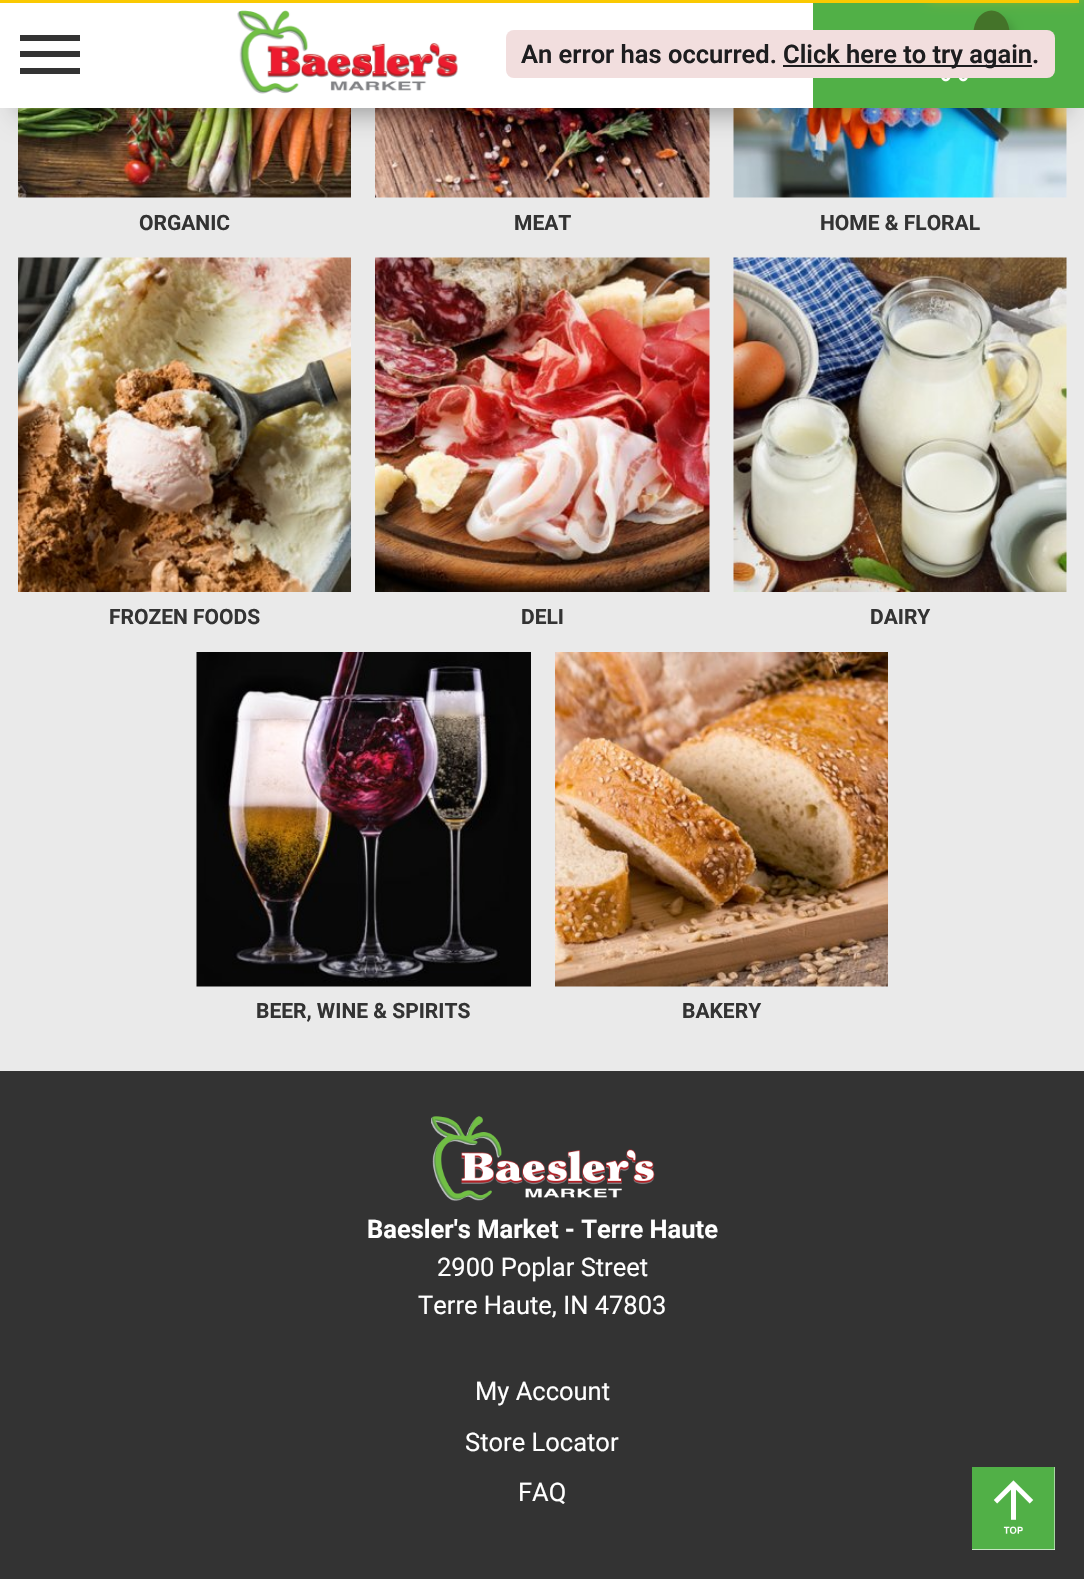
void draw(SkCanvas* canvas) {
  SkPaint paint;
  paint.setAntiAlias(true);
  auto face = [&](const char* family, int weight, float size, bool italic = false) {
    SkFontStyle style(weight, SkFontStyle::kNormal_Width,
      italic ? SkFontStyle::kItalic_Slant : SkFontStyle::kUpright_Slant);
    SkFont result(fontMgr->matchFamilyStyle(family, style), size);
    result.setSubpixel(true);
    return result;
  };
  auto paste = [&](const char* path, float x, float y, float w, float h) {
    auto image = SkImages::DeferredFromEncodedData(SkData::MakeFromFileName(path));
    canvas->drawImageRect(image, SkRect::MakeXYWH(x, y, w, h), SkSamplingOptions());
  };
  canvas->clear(0xffeaeaea);
  paste("img/3.png", 18, 108, 333, 90);
  paste("img/4.png", 375, 108, 335, 90);
  paste("img/5.png", 733, 108, 334, 90);
  paint.setColor(0x66000000);
  paint.setMaskFilter(SkMaskFilter::MakeBlur(kNormal_SkBlurStyle, 15));
  canvas->drawRect(SkRect::MakeXYWH(20, 42, 1045, 69), paint);
  paint.setMaskFilter(nullptr);
  paint.setColor(0xff51b047);
  canvas->drawRect(SkRect::MakeXYWH(813, 0, 271, 108), paint);
  paint.setColor(0x26000000);
  paint.setMaskFilter(SkMaskFilter::MakeBlur(kNormal_SkBlurStyle, 5));
  canvas->drawRoundRect(SkRect::MakeXYWH(981, 18, 33, 42), 16.5f, 16.5f, paint);
  paint.setMaskFilter(nullptr);
  paint.setColor(0xfffac901);
  canvas->drawRect(SkRect::MakeXYWH(0, 0, 1079, 3), paint);
  paint.setMaskFilter(SkMaskFilter::MakeBlur(kNormal_SkBlurStyle, 4));
  canvas->drawRect(SkRect::MakeXYWH(929, -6, 150, 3), paint);
  paint.setMaskFilter(nullptr);
  paint.setColor(0xff447329);
  canvas->drawOval(SkRect::MakeXYWH(973.5f, 10.5f, 36, 45), paint);
  paint.setColor(0xfffac901);
  paint.setMaskFilter(SkMaskFilter::MakeBlur(kNormal_SkBlurStyle, 7.5f));
  canvas->drawRect(SkRect::MakeXYWH(929, -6, 150, 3), paint);
  paint.setMaskFilter(nullptr);
  paint.setColor(0xffffffff);
  canvas->drawRect(SkRect::MakeXYWH(0, 3, 813, 105), paint);
  paint.setColor(0xfff2dede);
  canvas->drawRoundRect(SkRect::MakeXYWH(506, 30, 549, 48), 8, 8, paint);
  {
    const struct { float x, y, w, h; SkColor color; } items[] = {
      {783, 65, 249, 2, 0xff1d1d1f},
      {20, 51, 60, 6, 0xff333333},
      {20, 35, 60, 6, 0xff333333},
      {20, 68, 60, 6, 0xff333333},
    };
    for (auto [x, y, w, h, color] : items) {
      paint.setColor(color);
      canvas->drawRect(SkRect::MakeXYWH(x, y, w, h), paint);
    }
  }
  paste("img/1.png", 237, 10, 221, 84);
  paste("img/2.png", 941, 78, 27, 4);
  paste("img/6.png", 18, 257, 333, 335);
  paste("img/7.png", 375, 257, 335, 335);
  paste("img/8.png", 733, 257, 334, 335);
  paste("img/9.png", 196, 652, 335, 335);
  paste("img/10.png", 555, 652, 333, 335);
  canvas->drawRect(SkRect::MakeXYWH(0, 1071, 1084, 508), paint);
  paste("img/11.png", 431, 1116, 224, 85);
  paint.setColor(0xffffffff);
  canvas->drawRect(SkRect::MakeXYWH(972, 1467, 83, 83), paint);
  paste("img/12.png", 972, 1467, 83, 83);
  auto f0 = face("Roboto", 600, 25.5f);
  paint.setColor(0xff1d1d1f);
  canvas->drawString("An error has occurred.", 521, 63, f0, paint);
  canvas->drawString("Click here to try again.", 783, 63, f0, paint);
  auto f1 = face("Roboto", 700, 21);
  paint.setColor(0xff333333);
  {
    const struct { const char* s; float x, y; } items[] = {
      {"ORGANIC", 139, 230},
      {"MEAT", 514, 230},
      {"HOME & FLORAL", 820, 230},
      {"FROZEN FOODS", 109, 624},
      {"DELI", 521, 624},
      {"DAIRY", 870, 624},
      {"BEER, WINE & SPIRITS", 256, 1018},
      {"BAKERY", 682, 1018},
    };
    for (auto [s, x, y] : items) {
      canvas->drawString(s, x, y, f1, paint);
    }
  }
  auto f2 = face("Roboto", 700, 25.5f);
  paint.setColor(0xffffffff);
  canvas->drawString("Baesler's Market - Terre Haute", 367, 1238, f2, paint);
  auto f3 = face("Roboto", 400, 25.5f);
  {
    const struct { const char* s; float x, y; } items[] = {
      {"2900 Poplar Street", 437, 1276},
      {"Terre Haute, IN 47803", 418, 1314},
      {"My Account", 475, 1400},
      {"Store Locator", 465, 1451},
      {"FAQ", 518, 1501},
    };
    for (auto [s, x, y] : items) {
      canvas->drawString(s, x, y, f3, paint);
    }
  }
}
